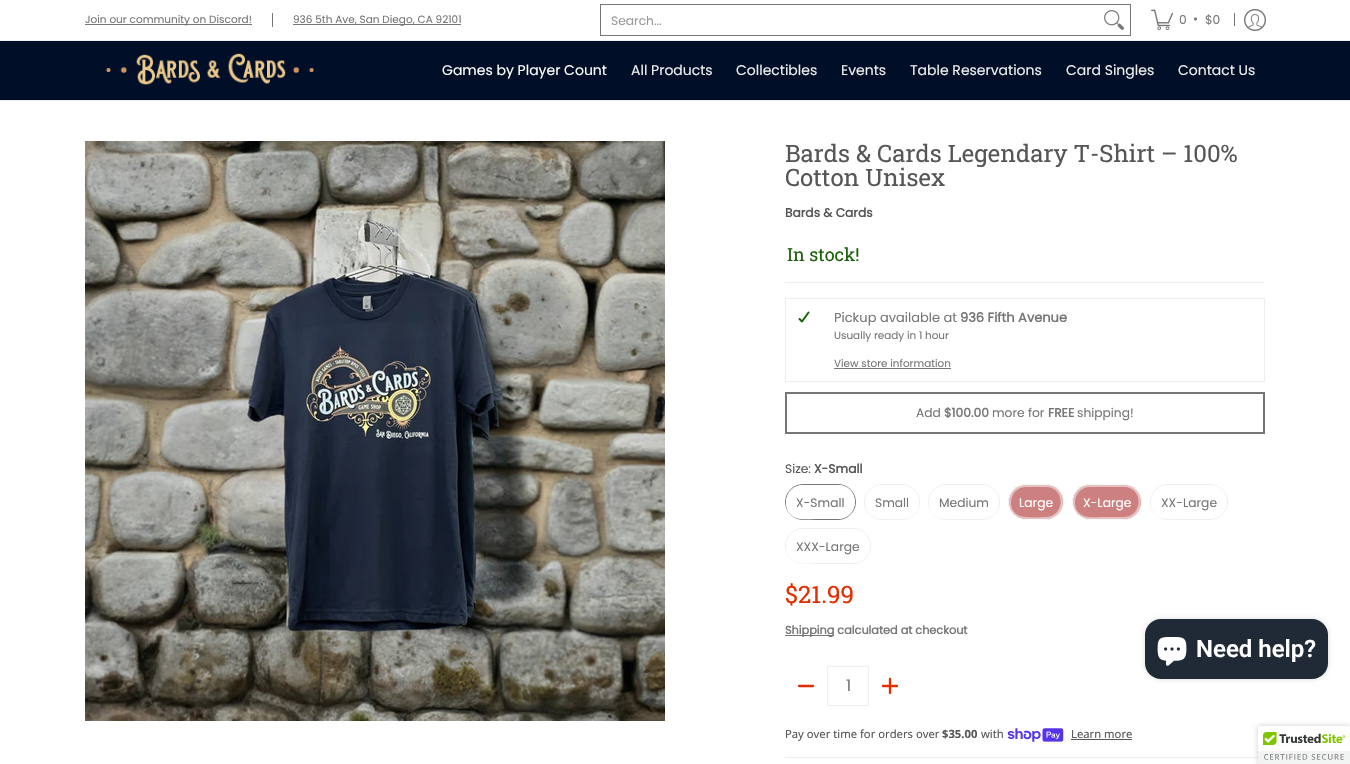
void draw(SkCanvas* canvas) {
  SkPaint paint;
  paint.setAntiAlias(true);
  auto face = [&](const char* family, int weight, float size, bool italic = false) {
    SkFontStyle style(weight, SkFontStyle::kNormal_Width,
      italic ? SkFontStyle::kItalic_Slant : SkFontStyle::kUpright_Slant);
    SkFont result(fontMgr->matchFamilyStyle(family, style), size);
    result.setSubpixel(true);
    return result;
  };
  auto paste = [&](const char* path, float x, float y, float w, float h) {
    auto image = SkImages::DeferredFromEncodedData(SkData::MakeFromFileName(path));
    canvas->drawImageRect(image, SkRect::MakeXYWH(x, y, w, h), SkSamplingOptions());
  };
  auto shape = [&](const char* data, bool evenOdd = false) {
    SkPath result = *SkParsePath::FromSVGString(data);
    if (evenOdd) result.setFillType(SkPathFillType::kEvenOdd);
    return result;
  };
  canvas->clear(0xffffffff);
  {
    const struct { float x, y, w, h; SkColor color; } items[] = {
      {0, 41, 1350, 59, 0xff000e27},
      {0, 40, 1350, 1, 0xffedeef4},
      {85, 24, 167, 1, 0xff767676},
      {272, 13, 1, 14, 0xff767676},
      {293, 24, 168, 1, 0xff767676},
    };
    for (auto [x, y, w, h, color] : items) {
      paint.setColor(color);
      canvas->drawRect(SkRect::MakeXYWH(x, y, w, h), paint);
    }
  }
  paint.setStroke(true);
  paint.setStrokeWidth(1);
  canvas->drawRect(SkRect::MakeXYWH(600.5f, 4.5f, 530, 31), paint);
  paste("img/1.png", 1104, 10, 20, 20);
  paste("img/2.png", 1151, 9, 22, 22);
  paint.setStroke(false);
  canvas->drawRect(SkRect::MakeXYWH(1234, 13, 1, 13), paint);
  paste("img/3.png", 1244, 9, 22, 22);
  paint.setColor(0xffedeef4);
  canvas->drawRect(SkRect::MakeXYWH(0, 100, 1350, 1), paint);
  paste("img/4.png", 106, 53, 208, 32);
  paste("img/5.png", 85, 141, 580, 580);
  canvas->drawRect(SkRect::MakeXYWH(785, 282, 480, 1), paint);
  paint.setStroke(true);
  canvas->drawRect(SkRect::MakeXYWH(785.5f, 298.5f, 479, 83), paint);
  paint.setStrokeWidth(2);
  paint.setStrokeCap(SkPaint::kRound_Cap);
  paint.setStrokeJoin(SkPaint::kRound_Join);
  paint.setColor(0xff1b6109);
  canvas->drawPath(shape("M808.5 312.5L802 321.5L799.5 319"), paint);
  paint.setStroke(false);
  paint.setColor(0xff767676);
  canvas->drawRect(SkRect::MakeXYWH(834, 368, 117, 1), paint);
  paint.setStroke(true);
  paint.setStrokeCap(SkPaint::kButt_Cap);
  paint.setStrokeJoin(SkPaint::kMiter_Join);
  canvas->drawRect(SkRect::MakeXYWH(786, 393, 478, 40), paint);
  paint.setStrokeWidth(1);
  canvas->drawRoundRect(SkRect::MakeXYWH(785.5f, 484.5f, 70, 35), 17.5f, 17.5f, paint);
  paint.setColor(0xffedeef4);
  canvas->drawRoundRect(SkRect::MakeXYWH(864.5f, 484.5f, 55, 35), 17.5f, 17.5f, paint);
  canvas->drawRoundRect(SkRect::MakeXYWH(928.5f, 484.5f, 71, 35), 17.5f, 17.5f, paint);
  paint.setStroke(false);
  paint.setColor(0xffcc8080);
  canvas->drawRoundRect(SkRect::MakeXYWH(1008.5f, 484.5f, 55, 35), 17.5f, 17.5f, paint);
  paint.setStroke(true);
  paint.setColor(0xfff6f7fa);
  canvas->drawRoundRect(SkRect::MakeXYWH(1008.5f, 484.5f, 55, 35), 17.5f, 17.5f, paint);
  paint.setStroke(false);
  paint.setColor(0xffcc8080);
  canvas->drawRoundRect(SkRect::MakeXYWH(1072.5f, 484.5f, 69, 35), 17.5f, 17.5f, paint);
  paint.setStroke(true);
  paint.setColor(0xfff6f7fa);
  canvas->drawRoundRect(SkRect::MakeXYWH(1072.5f, 484.5f, 69, 35), 17.5f, 17.5f, paint);
  paint.setColor(0xffedeef4);
  canvas->drawRoundRect(SkRect::MakeXYWH(1150.5f, 484.5f, 77, 35), 17.5f, 17.5f, paint);
  canvas->drawRoundRect(SkRect::MakeXYWH(785.5f, 528.5f, 85, 35), 17.5f, 17.5f, paint);
  paint.setStroke(false);
  paint.setColor(0xff767676);
  canvas->drawRect(SkRect::MakeXYWH(785, 635, 49, 1), paint);
  paint.setStroke(true);
  paint.setStrokeWidth(2.3f);
  paint.setStrokeCap(SkPaint::kRound_Cap);
  paint.setStrokeJoin(SkPaint::kRound_Join);
  paint.setColor(0xffe32e00);
  canvas->drawPath(shape("M813 686H799"), paint);
  paint.setStrokeWidth(1);
  paint.setStrokeCap(SkPaint::kButt_Cap);
  paint.setStrokeJoin(SkPaint::kMiter_Join);
  paint.setColor(0xffedeef4);
  canvas->drawRect(SkRect::MakeXYWH(827.5f, 666.5f, 41, 39), paint);
  paint.setStrokeWidth(2.3f);
  paint.setStrokeCap(SkPaint::kRound_Cap);
  paint.setStrokeJoin(SkPaint::kRound_Join);
  paint.setColor(0xffe32e00);
  canvas->drawPath(shape("M890 679V693M897 686H883"), paint);
  paint.setStroke(false);
  paint.setColor(0xffedeef4);
  canvas->drawRect(SkRect::MakeXYWH(785, 757, 480, 1), paint);
  paste("img/6.png", 1007, 728, 57, 14);
  paint.setColor(0xff565656);
  canvas->drawRect(SkRect::MakeXYWH(1071, 739, 61, 1), paint);
  paint.setColor(0x26000000);
  paint.setMaskFilter(SkMaskFilter::MakeBlur(kNormal_SkBlurStyle, 2.5f));
  canvas->drawRoundRect(SkRect::MakeXYWH(1145, 619, 183, 60), 16, 16, paint);
  paint.setMaskFilter(nullptr);
  paint.setColor(0xff202a36);
  canvas->drawRoundRect(SkRect::MakeXYWH(1145, 619, 183, 60), 16, 16, paint);
  paste("img/7.png", 1157, 637, 30, 29);
  paint.setColor(0x33000000);
  paint.setMaskFilter(SkMaskFilter::MakeBlur(kNormal_SkBlurStyle, 2.5f));
  canvas->drawRoundRect(SkRect::MakeXYWH(1258, 726, 92, 38), 2, 2, paint);
  paint.setMaskFilter(nullptr);
  paint.setColor(0xffffffff);
  canvas->drawPath(shape("M1260 726H1350V764H1258V728C1258 727 1259 726 1260 726Z"), paint);
  paste("img/8.png", 1258, 726, 92, 38);
  auto f0 = face("Poppins", 400, 10.5f);
  paint.setColor(0xff767676);
  canvas->drawString("Join our community on Discord!", 85, 23, f0, paint);
  canvas->drawString("936 5th Ave, San Diego, CA 92101", 293, 23, f0, paint);
  auto f1 = face("Poppins", 400, 12.25f);
  paint.setColor(0xff989898);
  canvas->drawString("Search...", 611, 25, f1, paint);
  paint.setColor(0xff767676);
  {
    const struct { const char* s; float x, y; } items[] = {
      {"0", 1179, 24},
      {"•", 1193, 23},
      {"$0", 1205, 24},
    };
    for (auto [s, x, y] : items) {
      canvas->drawString(s, x, y, f1, paint);
    }
  }
  auto f2 = face("Poppins", 400, 14);
  paint.setColor(0xffffffff);
  canvas->drawString("Games by Player Count", 442, 75, f2, paint);
  paint.setColor(0xffefefef);
  {
    const struct { const char* s; float x, y; } items[] = {
      {"All Products", 631, 75},
      {"Collectibles", 736, 75},
      {"Events", 841, 75},
      {"Table Reservations", 910, 75},
      {"Card Singles", 1066, 75},
      {"Contact Us", 1178, 75},
    };
    for (auto [s, x, y] : items) {
      canvas->drawString(s, x, y, f2, paint);
    }
  }
  auto f3 = face("Roboto Slab", 400, 24);
  paint.setColor(0xff565656);
  canvas->drawString("Bards & Cards Legendary T-Shirt – 100%", 785, 162, f3, paint);
  canvas->drawString("Cotton Unisex", 785, 186, f3, paint);
  auto f4 = face("Poppins", 700, 12.25f);
  canvas->drawString("Bards & Cards", 785, 217, f4, paint);
  auto f5 = face("Roboto Slab", 400, 18);
  paint.setColor(0xff1b6109);
  canvas->drawString("In stock!", 787, 261, f5, paint);
  auto f6 = face("Poppins", 400, 13);
  paint.setColor(0xff767676);
  canvas->drawString("Pickup available at", 834, 322, f6, paint);
  auto f7 = face("Poppins", 700, 13);
  canvas->drawString("936 Fifth Avenue", 960, 322, f7, paint);
  auto f8 = face("Poppins", 400, 10.4f);
  canvas->drawString("Usually ready in 1 hour", 834, 339, f8, paint);
  canvas->drawString("View store information", 834, 367, f8, paint);
  canvas->drawString("Add", 916, 417, f1, paint);
  canvas->drawString("$100.00", 944, 417, f4, paint);
  canvas->drawString("more for", 992, 417, f1, paint);
  canvas->drawString("FREE", 1048, 417, f4, paint);
  canvas->drawString("shipping!", 1077, 417, f1, paint);
  paint.setColor(0xff565656);
  canvas->drawString("Size:", 785, 473, f1, paint);
  canvas->drawString("X-Small", 814, 473, f4, paint);
  paint.setColor(0xff767676);
  canvas->drawString("X-Small", 796, 507, f1, paint);
  paint.setColor(0xffffffff);
  canvas->drawPath(shape("M803 485C785 485 779 511 796 518C802 520 809 519 815 519H838C861 518 860 485 838 485ZM803 487C784 487 783 516 803 517H826C832 517 839 518 844 516C859 510 854 487 838 487Z", true), paint);
  paint.setColor(0xff767676);
  canvas->drawString("Small", 875, 507, f1, paint);
  paint.setColor(0xffffffff);
  canvas->drawPath(shape("M882 485C860 485 859 518 882 519C888 519 903 520 909 518C926 511 920 485 902 485ZM882 487C863 487 862 516 882 517C888 517 903 518 908 516C923 510 918 487 902 487Z", true), paint);
  paint.setColor(0xff767676);
  canvas->drawString("Medium", 939, 507, f1, paint);
  paint.setColor(0xffffffff);
  canvas->drawPath(shape("M946 485C928 485 922 511 939 518C945 520 952 519 958 519H982C1005 518 1004 485 982 485ZM946 487C927 487 926 516 946 517H970C976 517 982 518 988 516C1003 510 998 487 982 487Z", true), paint);
  canvas->drawString("Large", 1019, 507, f1, paint);
  paint.setColor(0x80ffffff);
  canvas->drawPath(shape("M1026 485C1004 485 1003 518 1026 519C1032 519 1047 520 1053 518C1070 511 1064 485 1046 485ZM1026 487C1010 487 1005 510 1020 516C1025 518 1040 517 1046 517C1066 516 1065 487 1046 487Z", true), paint);
  paint.setColor(0xffffffff);
  canvas->drawString("X-Large", 1083, 507, f1, paint);
  paint.setColor(0x80ffffff);
  canvas->drawPath(shape("M1090 485C1072 485 1066 511 1083 518C1089 520 1096 519 1101 519H1124C1147 518 1146 485 1124 485ZM1090 487C1074 487 1069 510 1084 516C1089 518 1096 517 1101 517H1124C1144 516 1143 487 1124 487Z", true), paint);
  paint.setColor(0xff767676);
  canvas->drawString("XX-Large", 1161, 507, f1, paint);
  paint.setColor(0xffffffff);
  canvas->drawPath(shape("M1168 485C1150 485 1144 511 1161 518C1168 520 1175 519 1182 519H1210C1233 518 1232 485 1210 485ZM1168 487C1149 487 1148 516 1168 517H1196C1202 517 1210 518 1216 516C1231 510 1226 487 1210 487Z", true), paint);
  paint.setColor(0xff767676);
  canvas->drawString("XXX-Large", 796, 551, f1, paint);
  paint.setColor(0xffffffff);
  canvas->drawPath(shape("M803 529C785 529 779 555 796 562C803 565 812 563 820 563H853C876 562 875 529 853 529ZM803 531C783 531 783 560 803 561H836C843 561 852 562 859 560C874 554 869 531 853 531Z", true), paint);
  paint.setColor(0xffe32e00);
  canvas->drawString("$21.99", 785, 603, f3, paint);
  auto f9 = face("Poppins", 700, 11.25f);
  paint.setColor(0xff767676);
  canvas->drawString("Shipping calculated at checkout", 785, 634, f9, paint);
  auto f10 = face("Poppins", 400, 16);
  canvas->drawString("1", 846, 691, f10, paint);
  auto f11 = face("Noto Sans", 400, 11.25f);
  paint.setColor(0xff565656);
  canvas->drawString("Pay over time for orders over", 785, 738, f11, paint);
  auto f12 = face("Noto Sans", 700, 11.25f);
  canvas->drawString("$35.00", 942, 738, f12, paint);
  canvas->drawString("with", 981, 738, f11, paint);
  canvas->drawString("Learn more", 1071, 738, f11, paint);
  auto f13 = face("Roboto", 600, 24);
  paint.setColor(0xffffffff);
  canvas->drawString("Need help?", 1196, 657, f13, paint);
}
